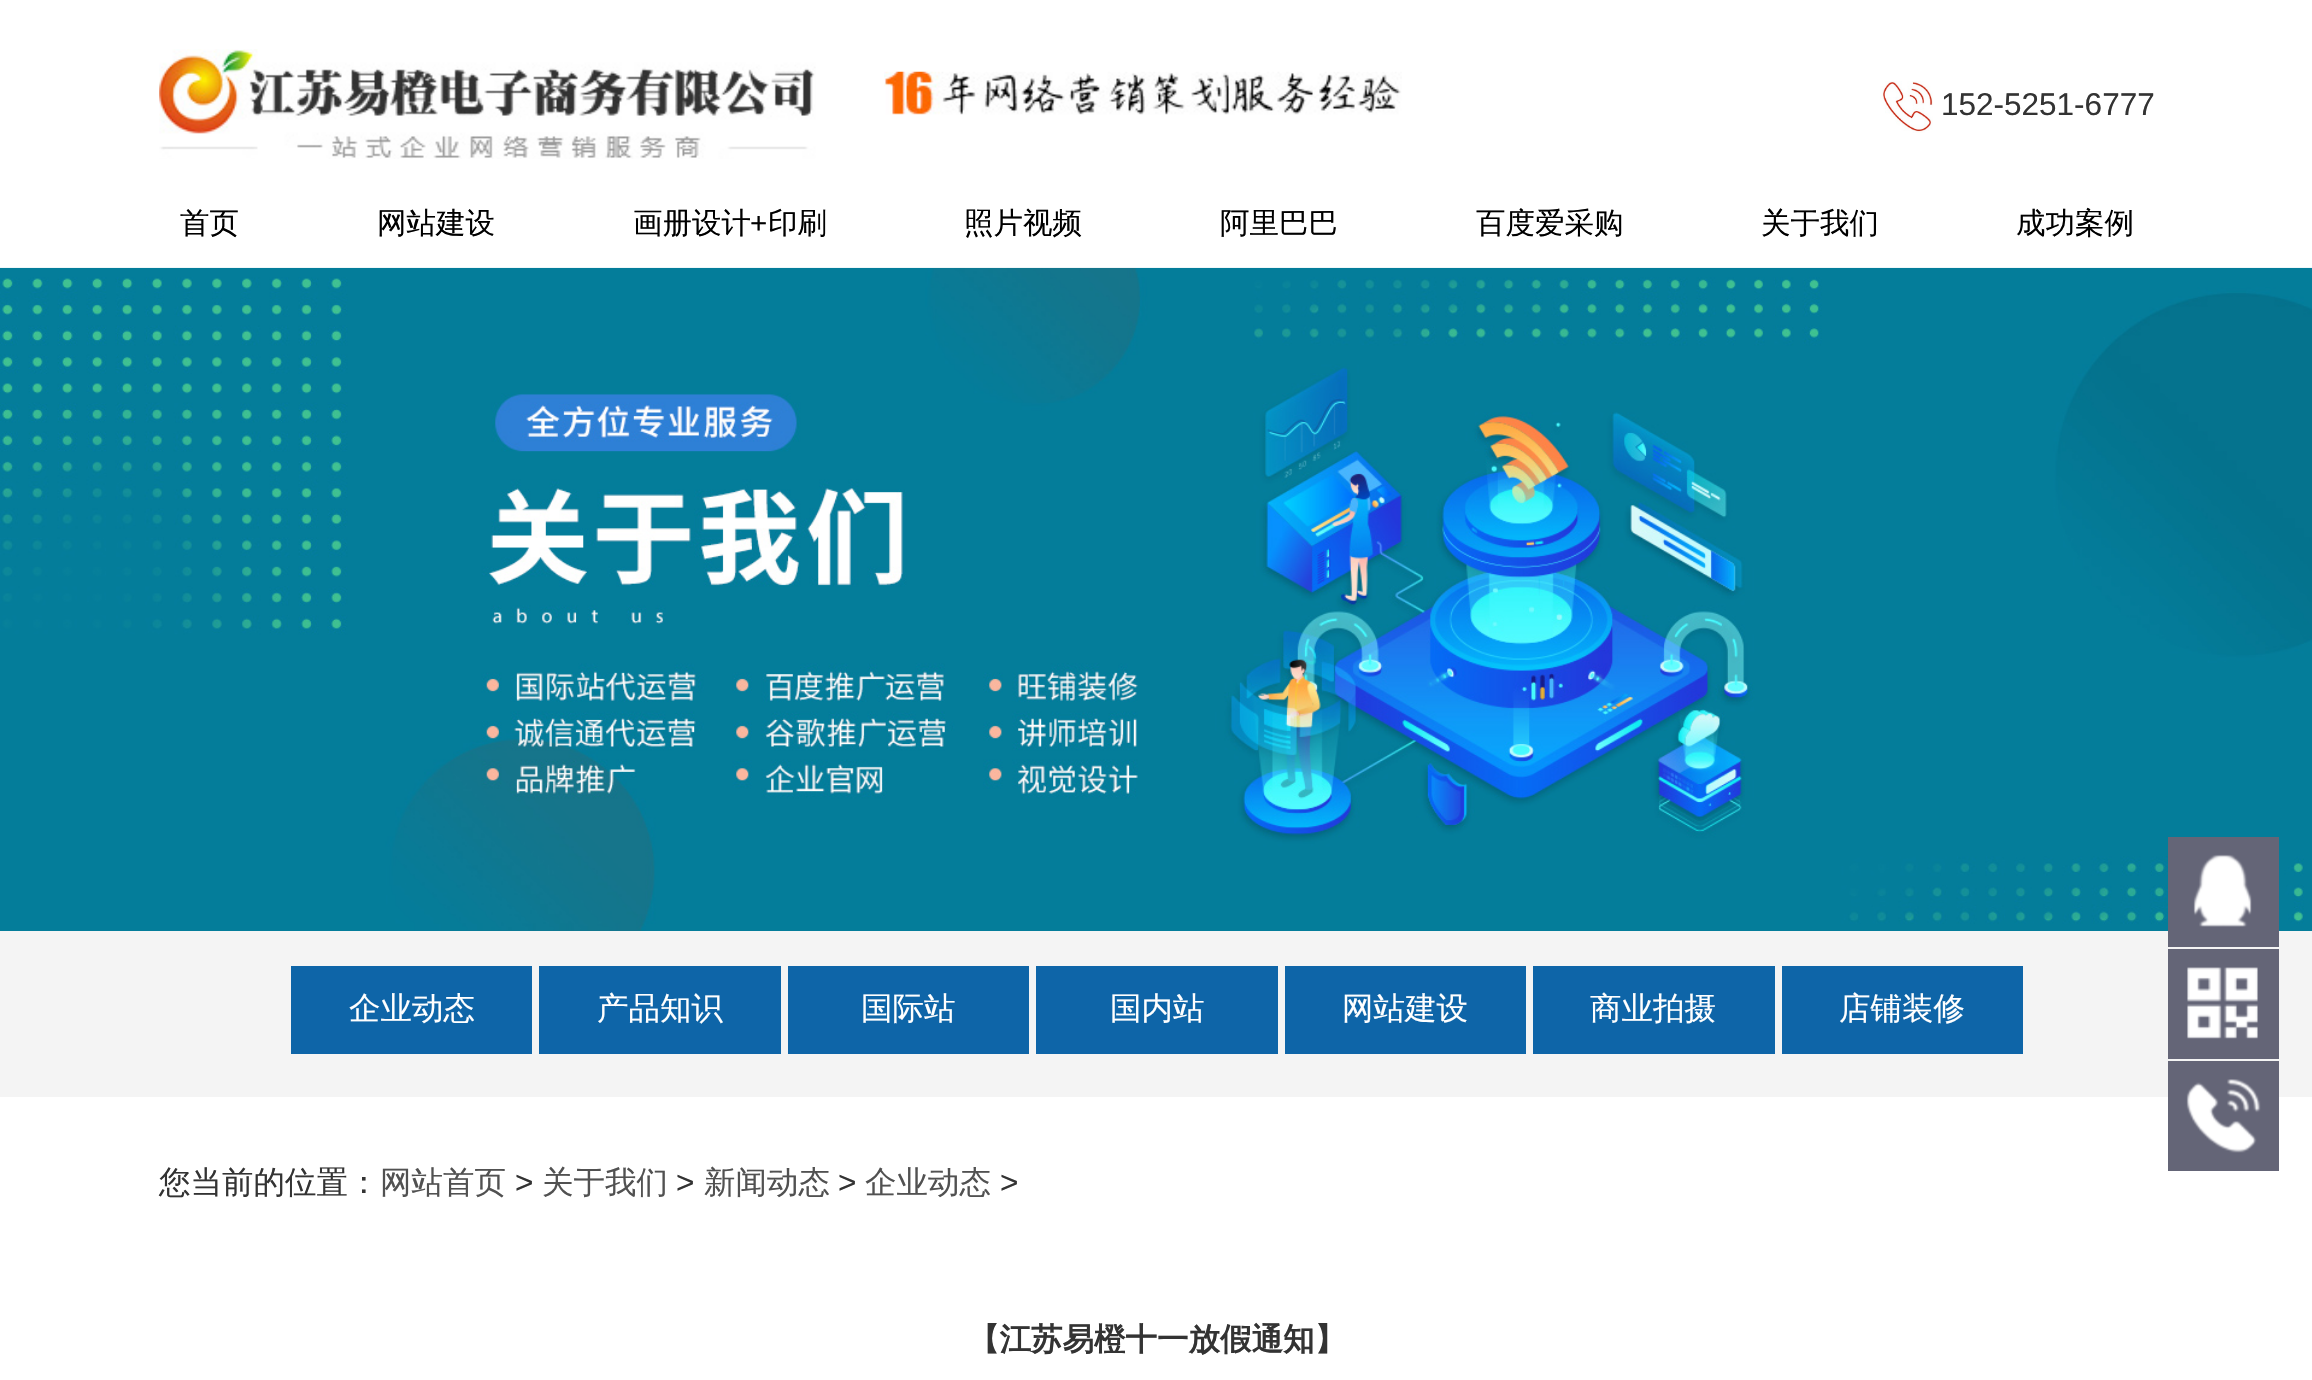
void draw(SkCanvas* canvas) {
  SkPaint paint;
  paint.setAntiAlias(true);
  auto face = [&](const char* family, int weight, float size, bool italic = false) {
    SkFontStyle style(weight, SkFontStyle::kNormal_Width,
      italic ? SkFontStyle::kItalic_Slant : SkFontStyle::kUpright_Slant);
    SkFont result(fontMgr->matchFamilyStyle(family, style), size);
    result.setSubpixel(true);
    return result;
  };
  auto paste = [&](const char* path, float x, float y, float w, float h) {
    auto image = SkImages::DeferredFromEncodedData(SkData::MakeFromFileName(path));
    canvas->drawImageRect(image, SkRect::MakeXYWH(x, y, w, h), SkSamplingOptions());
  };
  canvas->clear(0xffffffff);
  paste("img/1.png", 159, 49, 657, 110);
  paste("img/2.png", 884, 71, 518, 44);
  paste("img/3.png", 1880, 81, 53, 52);
  paste("img/4.png", 0, 267, 2312, 664);
  {
    const struct { float x, y, w, h; SkColor color; } items[] = {
      {0, 931, 2312, 166, 0xfff4f4f4},
      {291, 966, 241, 88, 0xff0e65a8},
      {539, 966, 242, 88, 0xff0e65a8},
      {788, 966, 241, 88, 0xff0e65a8},
      {1036, 966, 242, 88, 0xff0e65a8},
      {1285, 966, 241, 88, 0xff0e65a8},
      {1533, 966, 242, 88, 0xff0e65a8},
      {1782, 966, 241, 88, 0xff0e65a8},
      {2168, 837, 111, 110, 0xff646577},
    };
    for (auto [x, y, w, h, color] : items) {
      paint.setColor(color);
      canvas->drawRect(SkRect::MakeXYWH(x, y, w, h), paint);
    }
  }
  paste("img/5.png", 2193, 854, 59, 73);
  canvas->drawRect(SkRect::MakeXYWH(2168, 949, 111, 110), paint);
  paste("img/6.png", 2187, 967, 71, 72);
  canvas->drawRect(SkRect::MakeXYWH(2168, 1061, 111, 110), paint);
  paste("img/7.png", 2186, 1079, 75, 74);
  auto f0 = face("Liberation Sans", 400, 31.5f);
  paint.setColor(0xff333333);
  canvas->drawString("152-5251-6777", 1941, 115, f0, paint);
  auto f1 = face("WenQuanYi Zen Hei", 500, 29.5f);
  paint.setColor(0xff000000);
  {
    const struct { const char* s; float x, y; } items[] = {
      {"首页", 180, 233},
      {"网站建设", 377, 233},
      {"画册设计", 633, 233},
    };
    for (auto [s, x, y] : items) {
      canvas->drawString(s, x, y, f1, paint);
    }
  }
  auto f2 = face("Liberation Sans", 400, 29.5f);
  canvas->drawString("+", 750, 233, f2, paint);
  {
    const struct { const char* s; float x, y; } items[] = {
      {"印刷", 768, 233},
      {"照片视频", 964, 233},
      {"阿里巴巴", 1220, 233},
      {"百度爱采购", 1476, 233},
      {"关于我们", 1761, 233},
      {"成功案例", 2016, 233},
    };
    for (auto [s, x, y] : items) {
      canvas->drawString(s, x, y, f1, paint);
    }
  }
  auto f3 = face("WenQuanYi Zen Hei", 500, 31.5f);
  paint.setColor(0xffffffff);
  {
    const struct { const char* s; float x, y; } items[] = {
      {"企业动态", 349, 1019},
      {"产品知识", 597, 1019},
      {"国际站", 861, 1019},
      {"国内站", 1110, 1019},
      {"网站建设", 1342, 1019},
      {"商业拍摄", 1590, 1019},
      {"店铺装修", 1839, 1019},
    };
    for (auto [s, x, y] : items) {
      canvas->drawString(s, x, y, f3, paint);
    }
  }
  paint.setColor(0xff333333);
  canvas->drawString("您当前的位置：", 159, 1193, f3, paint);
  paint.setColor(0xff515151);
  canvas->drawString("网站首页", 380, 1193, f3, paint);
  paint.setColor(0xff333333);
  canvas->drawString(">", 515, 1193, f0, paint);
  paint.setColor(0xff515151);
  canvas->drawString("关于我们", 542, 1193, f3, paint);
  paint.setColor(0xff333333);
  canvas->drawString(">", 676, 1193, f0, paint);
  paint.setColor(0xff515151);
  canvas->drawString("新闻动态", 704, 1193, f3, paint);
  paint.setColor(0xff333333);
  canvas->drawString(">", 838, 1193, f0, paint);
  paint.setColor(0xff515151);
  canvas->drawString("企业动态", 865, 1193, f3, paint);
  paint.setColor(0xff333333);
  canvas->drawString(">", 1000, 1193, f0, paint);
  auto f4 = face("WenQuanYi Zen Hei", 700, 31.5f);
  canvas->drawString("【江苏易橙十一放假通知】", 968, 1350, f4, paint);
}
